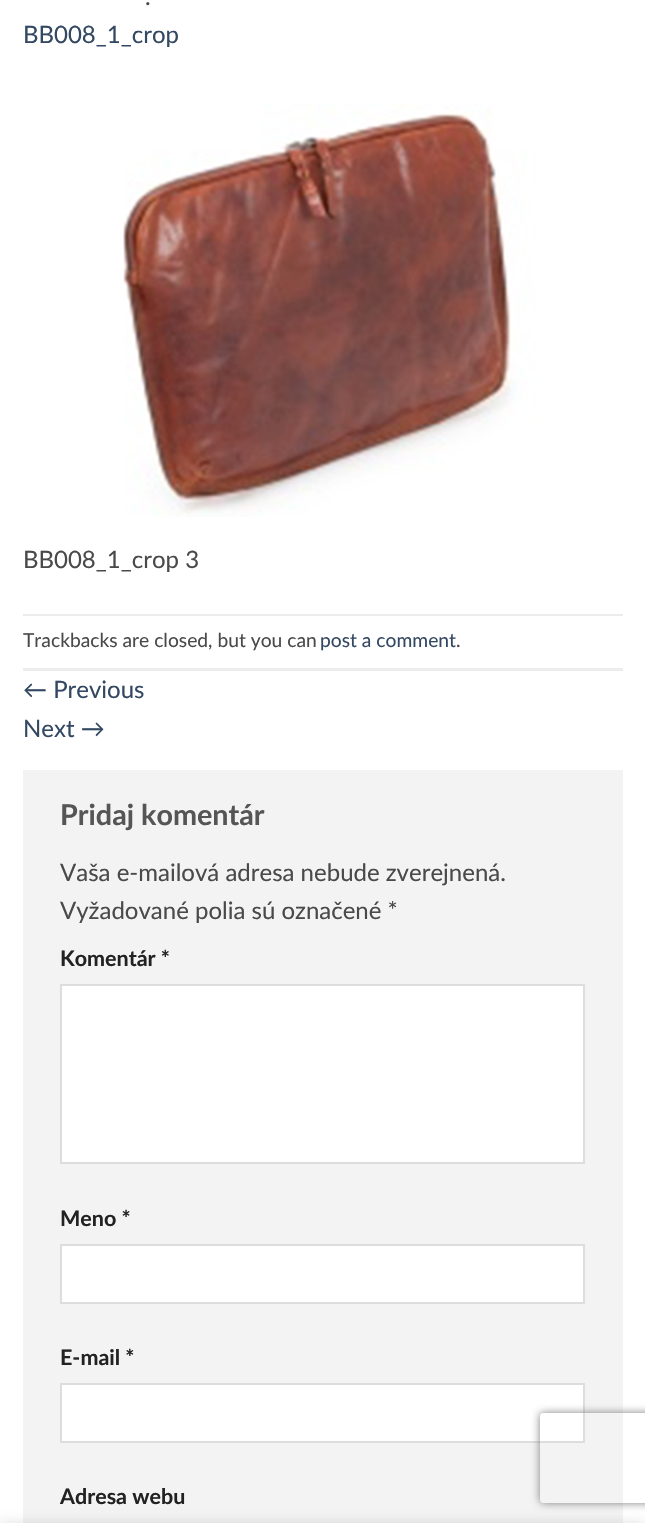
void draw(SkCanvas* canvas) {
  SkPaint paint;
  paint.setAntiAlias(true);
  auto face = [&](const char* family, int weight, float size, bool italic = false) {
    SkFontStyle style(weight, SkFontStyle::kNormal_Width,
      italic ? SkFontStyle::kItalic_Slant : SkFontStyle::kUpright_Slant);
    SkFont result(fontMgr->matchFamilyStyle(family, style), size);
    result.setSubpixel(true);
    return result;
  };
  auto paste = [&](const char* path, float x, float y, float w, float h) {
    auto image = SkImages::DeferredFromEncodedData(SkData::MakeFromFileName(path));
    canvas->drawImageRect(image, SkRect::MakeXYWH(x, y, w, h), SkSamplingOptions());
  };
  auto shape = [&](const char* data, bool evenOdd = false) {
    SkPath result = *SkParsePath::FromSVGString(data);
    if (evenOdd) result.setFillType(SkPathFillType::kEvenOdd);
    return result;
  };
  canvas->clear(0xffffffff);
  paste("img/1.png", 123, 104, 413, 413);
  {
    const struct { float x, y, w, h; SkColor color; } items[] = {
      {23, 614, 600, 2, 0xffececec},
      {23, 668, 600, 3, 0xffececec},
      {23, 770, 600, 753, 0xfff3f3f3},
    };
    for (auto [x, y, w, h, color] : items) {
      paint.setColor(color);
      canvas->drawRect(SkRect::MakeXYWH(x, y, w, h), paint);
    }
  }
  paint.setColor(0xffffffff);
  canvas->drawRect(SkRect::MakeXYWH(61, 985, 523, 178), paint);
  paint.setStroke(true);
  paint.setStrokeWidth(2);
  paint.setColor(0xffdddddd);
  canvas->drawRect(SkRect::MakeXYWH(61, 985, 523, 178), paint);
  paint.setStroke(false);
  paint.setColor(0xffffffff);
  canvas->drawRect(SkRect::MakeXYWH(61, 1245, 523, 58), paint);
  paint.setStroke(true);
  paint.setColor(0xffdddddd);
  canvas->drawRect(SkRect::MakeXYWH(61, 1245, 523, 58), paint);
  paint.setStroke(false);
  paint.setColor(0xffffffff);
  canvas->drawRect(SkRect::MakeXYWH(61, 1384, 523, 58), paint);
  paint.setStroke(true);
  paint.setColor(0xffdddddd);
  canvas->drawRect(SkRect::MakeXYWH(61, 1384, 523, 58), paint);
  canvas->save();
  canvas->clipPath(shape("M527 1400H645V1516H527ZM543 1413H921C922.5 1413 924 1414.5 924 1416V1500C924 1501.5 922.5 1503 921 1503H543C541.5 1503 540 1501.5 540 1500V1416C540 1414.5 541.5 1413 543 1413Z", true), true);
  paint.setStroke(false);
  paint.setColor(0xff808080);
  paint.setMaskFilter(SkMaskFilter::MakeBlur(kNormal_SkBlurStyle, 4));
  canvas->drawRoundRect(SkRect::MakeXYWH(540, 1413, 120, 90), 3, 3, paint);
  paint.setMaskFilter(nullptr);
  canvas->restore();
  paint.setColor(0x24000000);
  paint.setMaskFilter(SkMaskFilter::MakeBlur(kNormal_SkBlurStyle, 7));
  canvas->drawRect(SkRect::MakeXYWH(0, 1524, 645, 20), paint);
  paint.setMaskFilter(nullptr);
  auto f0 = face("Lato", 400, 24);
  paint.setColor(0xff4a4a4a);
  canvas->drawString(".", 145, 5, f0, paint);
  paint.setColor(0xff334862);
  canvas->drawString("BB008_1_crop", 23, 43, f0, paint);
  paint.setColor(0xff4a4a4a);
  canvas->drawString("BB008_1_crop 3", 23, 568, f0, paint);
  auto f1 = face("Lato", 400, 19.25f);
  canvas->drawString("Trackbacks are closed, but you can", 23, 647, f1, paint);
  paint.setColor(0xff334862);
  canvas->drawString("post a comment", 320, 647, f1, paint);
  paint.setColor(0xff4a4a4a);
  canvas->drawString(".", 456, 647, f1, paint);
  paint.setColor(0xff334862);
  canvas->drawString("← Previous", 23, 698, f0, paint);
  canvas->drawString("Next →", 23, 737, f0, paint);
  auto f2 = face("Lato", 700, 28.75f);
  paint.setColor(0xff555555);
  canvas->drawString("Pridaj komentár", 60, 825, f2, paint);
  paint.setColor(0xff4a4a4a);
  canvas->drawString("Vaša e-mailová adresa nebude zverejnená.", 60, 881, f0, paint);
  canvas->drawString("Vyžadované polia sú označené *", 60, 919, f0, paint);
  auto f3 = face("Lato", 700, 21.5f);
  paint.setColor(0xff222222);
  {
    const struct { const char* s; float x, y; } items[] = {
      {"Komentár *", 60, 966},
      {"Meno *", 60, 1226},
      {"E-mail *", 60, 1365},
      {"Adresa webu", 60, 1504},
    };
    for (auto [s, x, y] : items) {
      canvas->drawString(s, x, y, f3, paint);
    }
  }
}
